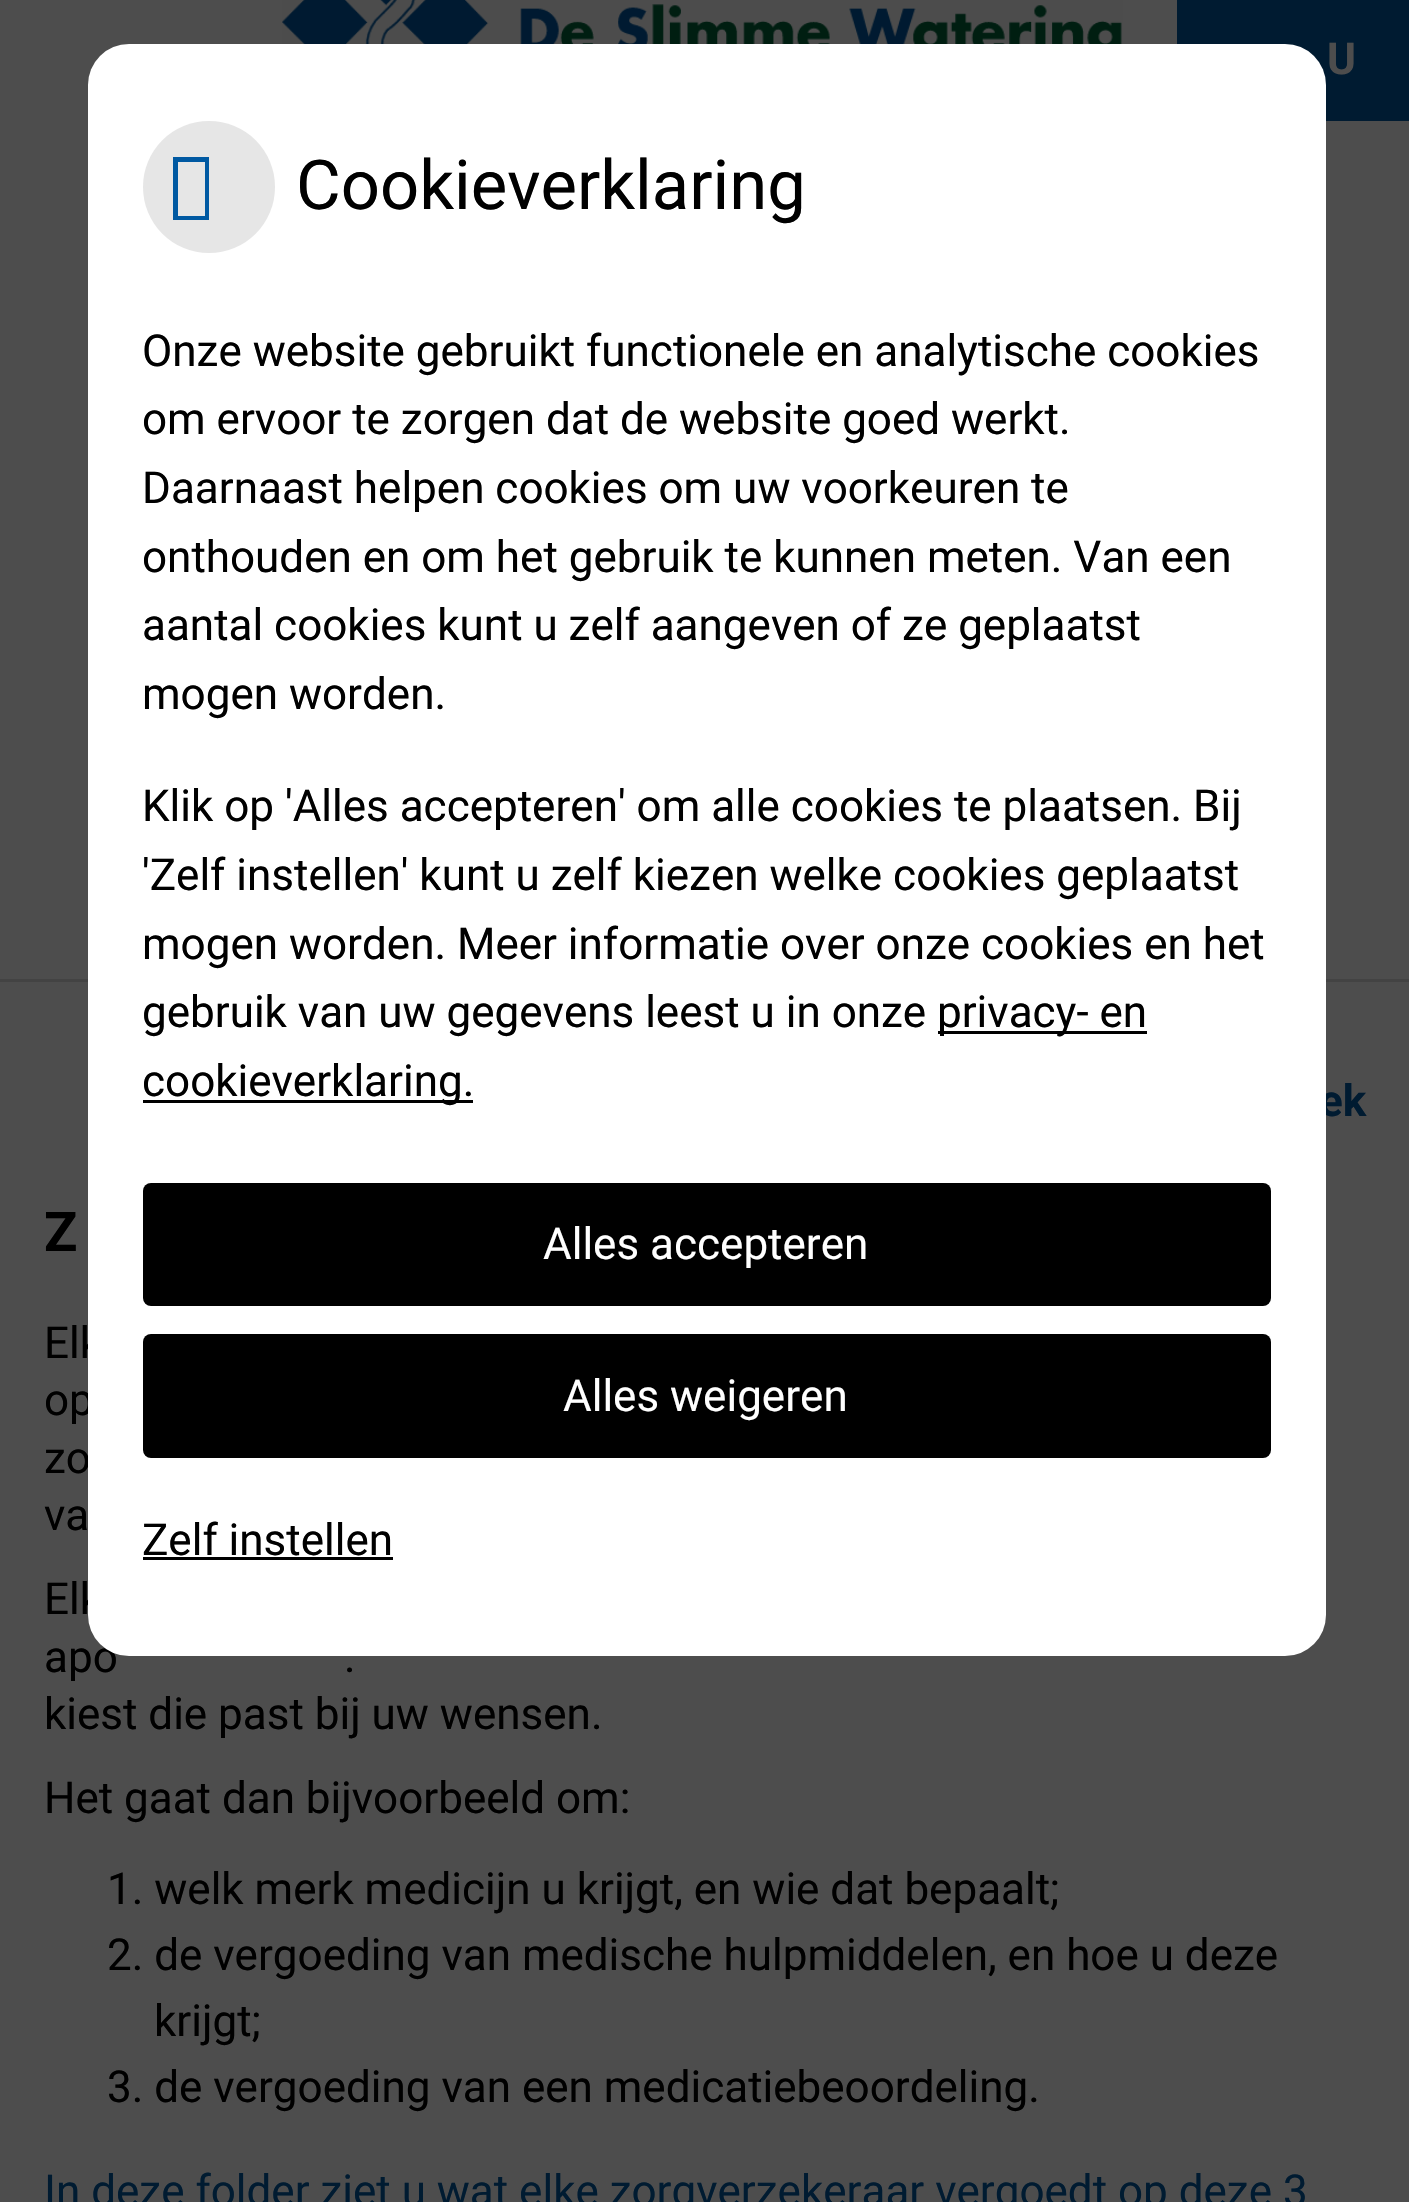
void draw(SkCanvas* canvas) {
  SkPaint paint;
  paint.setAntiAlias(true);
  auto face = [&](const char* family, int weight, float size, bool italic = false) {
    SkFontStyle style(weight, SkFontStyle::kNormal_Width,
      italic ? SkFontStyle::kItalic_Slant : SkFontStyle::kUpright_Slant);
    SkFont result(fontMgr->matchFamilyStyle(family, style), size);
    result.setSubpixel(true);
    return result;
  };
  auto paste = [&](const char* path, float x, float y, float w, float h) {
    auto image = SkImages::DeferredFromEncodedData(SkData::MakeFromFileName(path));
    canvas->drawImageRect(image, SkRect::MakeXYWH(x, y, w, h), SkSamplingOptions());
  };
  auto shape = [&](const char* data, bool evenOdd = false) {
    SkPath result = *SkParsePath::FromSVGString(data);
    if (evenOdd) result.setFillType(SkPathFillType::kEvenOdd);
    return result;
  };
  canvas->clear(0xff4d4d4d);
  paint.setColor(0xff434343);
  canvas->drawRect(SkRect::MakeXYWH(0, 979, 1409, 3), paint);
  paste("img/1.png", 282, 0, 841, 44);
  paint.setColor(0xff001b31);
  canvas->drawRect(SkRect::MakeXYWH(1177, 0, 232, 121), paint);
  auto f0 = face("Roboto", 700, 44);
  paint.setColor(0xff4d4d4d);
  canvas->drawString("U", 1327, 74, f0, paint);
  paint.setColor(0xff001b31);
  canvas->drawString("ek", 1319, 1116, f0, paint);
  auto f1 = face("Roboto", 700, 55);
  paint.setColor(0xff000000);
  canvas->drawString("Z", 44, 1251, f1, paint);
  auto f2 = face("Roboto", 400, 44);
  {
    const struct { const char* s; float x, y; } items[] = {
      {"Elk", 44, 1358},
      {"op", 44, 1415},
      {"zo", 44, 1473},
      {"va", 44, 1530},
      {"Elk", 44, 1614},
      {"apo", 44, 1672},
    };
    for (auto [s, x, y] : items) {
      canvas->drawString(s, x, y, f2, paint);
    }
  }
  paint.setColor(0xffffffff);
  canvas->drawRoundRect(SkRect::MakeXYWH(88, 44, 1238, 1612), 41, 41, paint);
  paint.setColor(0xff000000);
  canvas->drawString("Zelf instellen", 142, 1555, f2, paint);
  canvas->drawRect(SkRect::MakeXYWH(143, 1557, 250, 3), paint);
  canvas->drawRoundRect(SkRect::MakeXYWH(143, 1334, 1128, 124), 8, 8, paint);
  paint.setColor(0xffffffff);
  canvas->drawString("Alles weigeren", 563, 1411, f2, paint);
  paint.setColor(0xff000000);
  canvas->drawRoundRect(SkRect::MakeXYWH(143, 1183, 1128, 123), 8, 8, paint);
  paint.setColor(0xffffffff);
  canvas->drawString("Alles accepteren", 543, 1259, f2, paint);
  paint.setColor(0xff000000);
  canvas->drawRect(SkRect::MakeXYWH(143, 1100, 330, 3), paint);
  canvas->drawString("cookieverklaring.", 142, 1096, f2, paint);
  canvas->drawRect(SkRect::MakeXYWH(938, 1031, 209, 3), paint);
  {
    const struct { const char* s; float x, y; } items[] = {
      {"privacy- en", 937, 1027},
      {"gebruik van uw gegevens leest u in onze", 142, 1027},
      {"mogen worden. Meer informatie over onze cookies en het", 142, 959},
      {"'Zelf instellen' kunt u zelf kiezen welke cookies geplaatst", 142, 890},
      {"Klik op 'Alles accepteren' om alle cookies te plaatsen. Bij", 142, 821},
      {"mogen worden.", 142, 709},
      {"aantal cookies kunt u zelf aangeven of ze geplaatst", 142, 640},
      {"onthouden en om het gebruik te kunnen meten. Van een", 142, 572},
      {"Daarnaast helpen cookies om uw voorkeuren te", 142, 503},
      {"om ervoor te zorgen dat de website goed werkt.", 142, 434},
      {"Onze website gebruikt functionele en analytische cookies", 142, 366},
    };
    for (auto [s, x, y] : items) {
      canvas->drawString(s, x, y, f2, paint);
    }
  }
  auto f3 = face("Roboto", 400, 68.75f);
  canvas->drawString("Cookieverklaring", 296, 209, f3, paint);
  paint.setColor(0xffe6e6e6);
  canvas->drawCircle(209, 187, 66, paint);
  paint.setColor(0xff0059a2);
  canvas->drawPath(shape("M173 220V157H209V220ZM178 216H205V162H178Z"), paint);
  paint.setColor(0xff000000);
  {
    const struct { const char* s; float x, y; } items[] = {
      {".", 344, 1672},
      {"kiest die past bij uw wensen.", 44, 1729},
      {"Het gaat dan bijvoorbeeld om:", 44, 1813},
      {"1. welk merk medicijn u krijgt, en wie dat bepaalt;", 107, 1904},
      {"2. de vergoeding van medische hulpmiddelen, en hoe u deze", 107, 1970},
      {"krijgt;", 154, 2036},
      {"3. de vergoeding van een medicatiebeoordeling.", 107, 2102},
    };
    for (auto [s, x, y] : items) {
      canvas->drawString(s, x, y, f2, paint);
    }
  }
  paint.setColor(0xff001b31);
  canvas->drawString("In deze folder ziet u wat elke zorgverzekeraar vergoedt op deze 3", 44, 2206, f2, paint);
}
